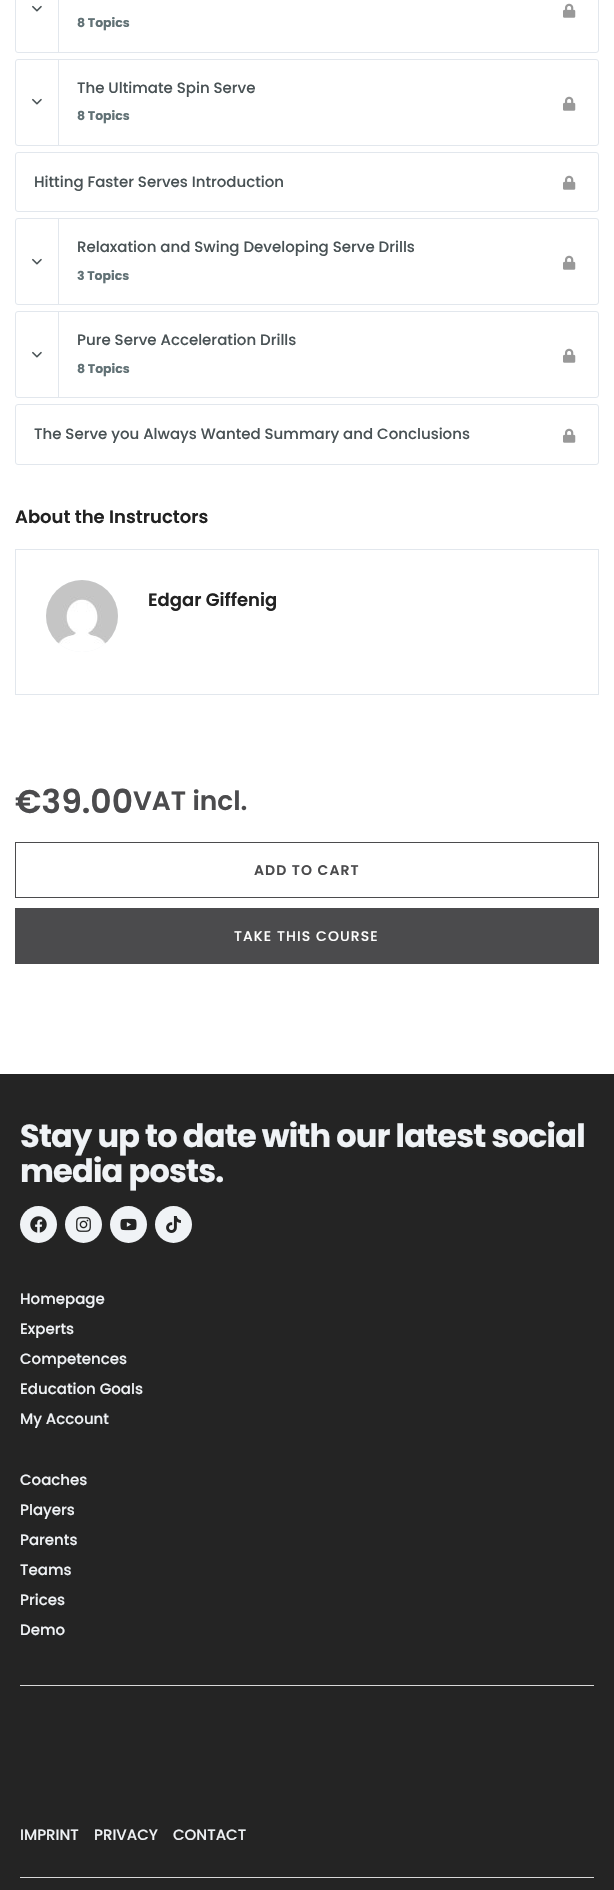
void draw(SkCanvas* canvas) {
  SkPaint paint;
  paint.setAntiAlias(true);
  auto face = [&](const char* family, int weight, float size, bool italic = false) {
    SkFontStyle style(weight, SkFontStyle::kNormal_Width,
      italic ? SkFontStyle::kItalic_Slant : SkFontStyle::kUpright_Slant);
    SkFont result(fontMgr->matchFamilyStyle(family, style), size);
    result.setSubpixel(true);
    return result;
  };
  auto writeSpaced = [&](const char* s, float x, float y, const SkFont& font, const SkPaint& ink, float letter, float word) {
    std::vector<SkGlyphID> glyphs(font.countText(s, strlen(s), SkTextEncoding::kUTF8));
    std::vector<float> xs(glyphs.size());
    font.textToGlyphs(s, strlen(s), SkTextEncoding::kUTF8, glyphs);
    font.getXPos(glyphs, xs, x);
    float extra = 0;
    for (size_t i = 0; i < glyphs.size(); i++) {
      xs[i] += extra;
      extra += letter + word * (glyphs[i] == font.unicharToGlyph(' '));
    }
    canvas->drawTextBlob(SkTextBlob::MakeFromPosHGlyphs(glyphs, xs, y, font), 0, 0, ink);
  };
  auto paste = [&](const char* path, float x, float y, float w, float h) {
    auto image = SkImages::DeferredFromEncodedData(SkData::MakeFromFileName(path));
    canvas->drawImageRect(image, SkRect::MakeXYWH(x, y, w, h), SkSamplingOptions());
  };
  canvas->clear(0xffffffff);
  paint.setStroke(true);
  paint.setStrokeWidth(1);
  paint.setColor(0xffe2e7ed);
  canvas->drawRoundRect(SkRect::MakeXYWH(15.5f, -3.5f, 583, 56), 2.5f, 2.5f, paint);
  paint.setStroke(false);
  canvas->drawRect(SkRect::MakeXYWH(58, 0, 1, 52), paint);
  paste("img/1.png", 32, 5, 10, 7);
  paste("img/2.png", 563, 3, 13, 15);
  paint.setStroke(true);
  canvas->drawRoundRect(SkRect::MakeXYWH(15.5f, 59.5f, 583, 86), 2.5f, 2.5f, paint);
  paint.setStroke(false);
  canvas->drawRect(SkRect::MakeXYWH(58, 60, 1, 85), paint);
  paste("img/1.png", 32, 98, 10, 7);
  paste("img/2.png", 563, 96, 13, 15);
  paint.setStroke(true);
  canvas->drawRoundRect(SkRect::MakeXYWH(15.5f, 152.5f, 583, 59), 2.5f, 2.5f, paint);
  paste("img/2.png", 563, 175, 13, 15);
  canvas->drawRoundRect(SkRect::MakeXYWH(15.5f, 218.5f, 583, 86), 2.5f, 2.5f, paint);
  paint.setStroke(false);
  canvas->drawRect(SkRect::MakeXYWH(58, 219, 1, 85), paint);
  paste("img/1.png", 32, 258, 10, 7);
  paste("img/2.png", 563, 255, 13, 15);
  paint.setStroke(true);
  canvas->drawRoundRect(SkRect::MakeXYWH(15.5f, 311.5f, 583, 86), 2.5f, 2.5f, paint);
  paint.setStroke(false);
  canvas->drawRect(SkRect::MakeXYWH(58, 312, 1, 85), paint);
  paste("img/1.png", 32, 351, 10, 7);
  paste("img/2.png", 563, 348, 13, 15);
  paint.setStroke(true);
  canvas->drawRoundRect(SkRect::MakeXYWH(15.5f, 404.5f, 583, 60), 2.5f, 2.5f, paint);
  paste("img/2.png", 563, 428, 13, 15);
  canvas->drawRect(SkRect::MakeXYWH(15.5f, 549.5f, 583, 145), paint);
  paint.setStroke(false);
  paint.setColor(0xfff0f3f6);
  canvas->drawCircle(82, 616, 36, paint);
  paste("img/3.png", 46, 580, 72, 72);
  paint.setStroke(true);
  paint.setColor(0xff4b4b4d);
  canvas->drawRect(SkRect::MakeXYWH(15.5f, 842.5f, 583, 55), paint);
  paint.setStroke(false);
  canvas->drawRect(SkRect::MakeXYWH(15, 908, 584, 56), paint);
  paint.setColor(0xff242424);
  canvas->drawRect(SkRect::MakeXYWH(0, 1074, 614, 816), paint);
  paint.setColor(0xfff0f3f6);
  canvas->drawCircle(38.5f, 1224.5f, 18.5f, paint);
  paste("img/4.png", 30, 1216, 17, 17);
  canvas->drawCircle(83.5f, 1224.5f, 18.5f, paint);
  paste("img/5.png", 76, 1217, 15, 15);
  canvas->drawCircle(128.5f, 1224.5f, 18.5f, paint);
  paste("img/6.png", 120, 1218, 17, 13);
  canvas->drawCircle(173.5f, 1224.5f, 18.5f, paint);
  paste("img/7.png", 166, 1216, 15, 17);
  paint.setColor(0xffd8d8d8);
  canvas->drawRect(SkRect::MakeXYWH(20, 1685, 574, 1), paint);
  canvas->drawRect(SkRect::MakeXYWH(20, 1877, 574, 1), paint);
  auto f0 = face("Poppins", 700, 12.5f);
  paint.setColor(0xff617175);
  canvas->drawString("8 Topics", 77, 27, f0, paint);
  auto f1 = face("Poppins", 500, 15);
  paint.setColor(0xff495255);
  canvas->drawString("The Ultimate Spin Serve", 77, 93, f1, paint);
  paint.setColor(0xff617175);
  canvas->drawString("8 Topics", 77, 120, f0, paint);
  paint.setColor(0xff495255);
  canvas->drawString("Hitting Faster Serves Introduction", 34, 187, f1, paint);
  canvas->drawString("Relaxation and Swing Developing Serve Drills", 77, 252, f1, paint);
  paint.setColor(0xff617175);
  canvas->drawString("3 Topics", 77, 280, f0, paint);
  paint.setColor(0xff495255);
  canvas->drawString("Pure Serve Acceleration Drills", 77, 345, f1, paint);
  paint.setColor(0xff617175);
  canvas->drawString("8 Topics", 77, 373, f0, paint);
  paint.setColor(0xff495255);
  canvas->drawString("The Serve you Always Wanted Summary and Conclusions", 34, 439, f1, paint);
  auto f2 = face("Poppins", 600, 18);
  paint.setColor(0xff222222);
  canvas->drawString("About the Instructors", 15, 523, f2, paint);
  canvas->drawString("Edgar Giffenig", 148, 606, f2, paint);
  auto f3 = face("Poppins", 600, 33);
  paint.setColor(0xff4b4b4d);
  canvas->drawString("€39.00", 15, 813, f3, paint);
  auto f4 = face("Poppins", 600, 26.5f);
  canvas->drawString("VAT incl.", 133, 810, f4, paint);
  auto f5 = face("Poppins", 600, 14);
  writeSpaced("ADD TO CART", 254, 875, f5, paint, 1.1f, 0);
  auto f6 = face("Poppins", 500, 14);
  paint.setColor(0xffffffff);
  writeSpaced("TAKE THIS COURSE", 234, 941, f6, paint, 1.1f, 0);
  auto f7 = face("Poppins", 700, 32);
  paint.setColor(0xfff0f3f6);
  writeSpaced("Stay up to date with our latest social", 20, 1147, f7, paint, -0.8f, 0);
  writeSpaced("media posts.", 20, 1182, f7, paint, -0.8f, 0);
  {
    const struct { const char* s; float x, y; } items[] = {
      {"Homepage", 20, 1304},
      {"Experts", 20, 1334},
      {"Competences", 20, 1364},
      {"Education Goals", 20, 1394},
      {"My Account", 20, 1424},
      {"Coaches", 20, 1485},
      {"Players", 20, 1515},
      {"Parents", 20, 1545},
      {"Teams", 20, 1575},
      {"Prices", 20, 1605},
      {"Demo", 20, 1635},
      {"IMPRINT", 20, 1840},
      {"PRIVACY", 94, 1840},
      {"CONTACT", 173, 1840},
    };
    for (auto [s, x, y] : items) {
      canvas->drawString(s, x, y, f1, paint);
    }
  }
}
